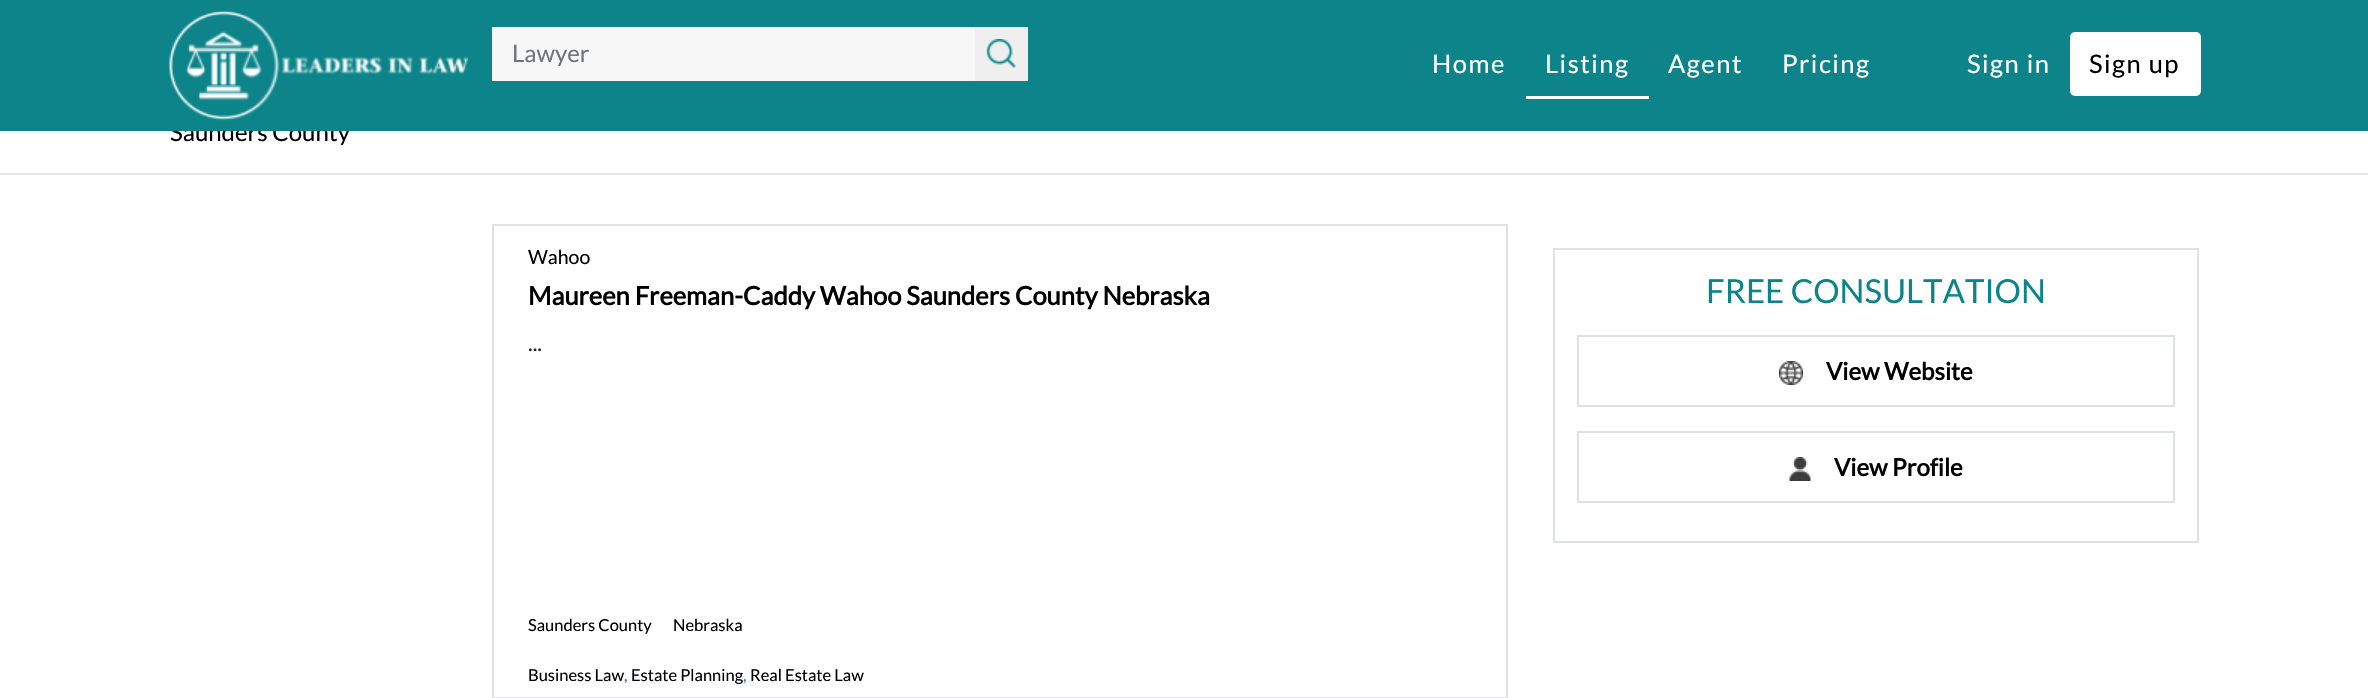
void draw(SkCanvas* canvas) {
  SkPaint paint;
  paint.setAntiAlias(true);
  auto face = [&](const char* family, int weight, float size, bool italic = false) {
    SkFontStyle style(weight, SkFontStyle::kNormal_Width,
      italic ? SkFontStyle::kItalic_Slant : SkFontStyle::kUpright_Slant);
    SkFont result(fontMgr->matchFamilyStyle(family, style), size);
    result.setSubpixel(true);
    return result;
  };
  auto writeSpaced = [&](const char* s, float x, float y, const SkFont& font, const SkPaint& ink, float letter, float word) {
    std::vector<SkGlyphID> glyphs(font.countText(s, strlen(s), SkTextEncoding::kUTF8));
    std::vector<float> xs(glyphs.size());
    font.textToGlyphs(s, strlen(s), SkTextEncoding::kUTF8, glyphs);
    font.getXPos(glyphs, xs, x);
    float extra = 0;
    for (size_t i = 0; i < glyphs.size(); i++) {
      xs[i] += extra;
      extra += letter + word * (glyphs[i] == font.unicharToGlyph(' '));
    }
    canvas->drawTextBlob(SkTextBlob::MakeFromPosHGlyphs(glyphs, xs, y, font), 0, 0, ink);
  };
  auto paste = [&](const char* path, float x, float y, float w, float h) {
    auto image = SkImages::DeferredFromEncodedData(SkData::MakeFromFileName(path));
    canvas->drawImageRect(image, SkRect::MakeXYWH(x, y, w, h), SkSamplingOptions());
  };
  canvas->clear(0xffffffff);
  paint.setColor(0xffe6e6e6);
  canvas->drawRect(SkRect::MakeXYWH(0, 173, 2368, 2), paint);
  paint.setStroke(true);
  paint.setStrokeWidth(2);
  paint.setColor(0xffdee2e6);
  canvas->drawRect(SkRect::MakeXYWH(493, 225, 1014, 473), paint);
  canvas->drawRect(SkRect::MakeXYWH(1554, 249, 644, 293), paint);
  canvas->drawRect(SkRect::MakeXYWH(1578, 336, 596, 70), paint);
  paste("img/3.png", 1779, 361, 24, 24);
  canvas->drawRect(SkRect::MakeXYWH(1578, 432, 596, 70), paint);
  paste("img/4.png", 1789, 457, 22, 24);
  auto f0 = face("Lato", 400, 24);
  paint.setStroke(false);
  paint.setColor(0xff000000);
  canvas->drawString("Saunders County", 170, 141, f0, paint);
  paint.setColor(0xff0c8489);
  canvas->drawRect(SkRect::MakeXYWH(0, 0, 2368, 131), paint);
  paint.setColor(0xfff7f7f7);
  canvas->drawRect(SkRect::MakeXYWH(492, 27, 483, 54), paint);
  paint.setColor(0xff6c757d);
  canvas->drawString("Lawyer", 512, 62, f0, paint);
  paint.setColor(0xffefefef);
  canvas->drawRect(SkRect::MakeXYWH(975, 27, 53, 54), paint);
  paste("img/2.png", 986, 39, 30, 29);
  paint.setColor(0xffffffff);
  canvas->drawRoundRect(SkRect::MakeXYWH(2070, 32, 131, 64), 5, 5, paint);
  auto f1 = face("Lato", 400, 25.5f);
  paint.setColor(0xff000000);
  writeSpaced("Sign up", 2089, 73, f1, paint, 1.5f, 0);
  paint.setColor(0xffffffff);
  {
    const struct { const char* s; float x, y; } items[] = {
      {"Sign in", 1967, 73},
      {"Pricing", 1782, 73},
      {"Agent", 1668, 73},
      {"Listing", 1545, 73},
    };
    for (auto [s, x, y] : items) {
      writeSpaced(s, x, y, f1, paint, 1.5f, 0);
    }
  }
  canvas->drawRect(SkRect::MakeXYWH(1526, 96, 123, 3), paint);
  writeSpaced("Home", 1432, 73, f1, paint, 1.5f, 0);
  paste("img/1.png", 169, 10, 299, 111);
  auto f2 = face("Lato", 400, 19.5f);
  paint.setColor(0xff000000);
  canvas->drawString("Wahoo", 528, 264, f2, paint);
  auto f3 = face("Lato", 700, 25.5f);
  canvas->drawString("Maureen Freeman-Caddy Wahoo Saunders County Nebraska", 528, 305, f3, paint);
  auto f4 = face("Lato", 400, 22);
  paint.setColor(0xff212529);
  canvas->drawString("...", 528, 351, f4, paint);
  auto f5 = face("Lato", 400, 16.5f);
  paint.setColor(0xff000000);
  {
    const struct { const char* s; float x, y; } items[] = {
      {"Saunders County", 528, 631},
      {"Nebraska", 673, 631},
      {"Business Law", 528, 681},
    };
    for (auto [s, x, y] : items) {
      canvas->drawString(s, x, y, f5, paint);
    }
  }
  paint.setColor(0xff0c8489);
  canvas->drawString(",", 624, 681, f5, paint);
  paint.setColor(0xff000000);
  canvas->drawString("Estate Planning", 631, 681, f5, paint);
  paint.setColor(0xff0c8489);
  canvas->drawString(",", 743, 681, f5, paint);
  paint.setColor(0xff000000);
  canvas->drawString("Real Estate Law", 750, 681, f5, paint);
  auto f6 = face("Lato", 400, 33);
  paint.setColor(0xff0c8489);
  canvas->drawString("FREE CONSULTATION", 1706, 303, f6, paint);
  auto f7 = face("Lato", 700, 24);
  paint.setColor(0xff000000);
  canvas->drawString("View Website", 1826, 380, f7, paint);
  canvas->drawString("View Profile", 1834, 476, f7, paint);
}
